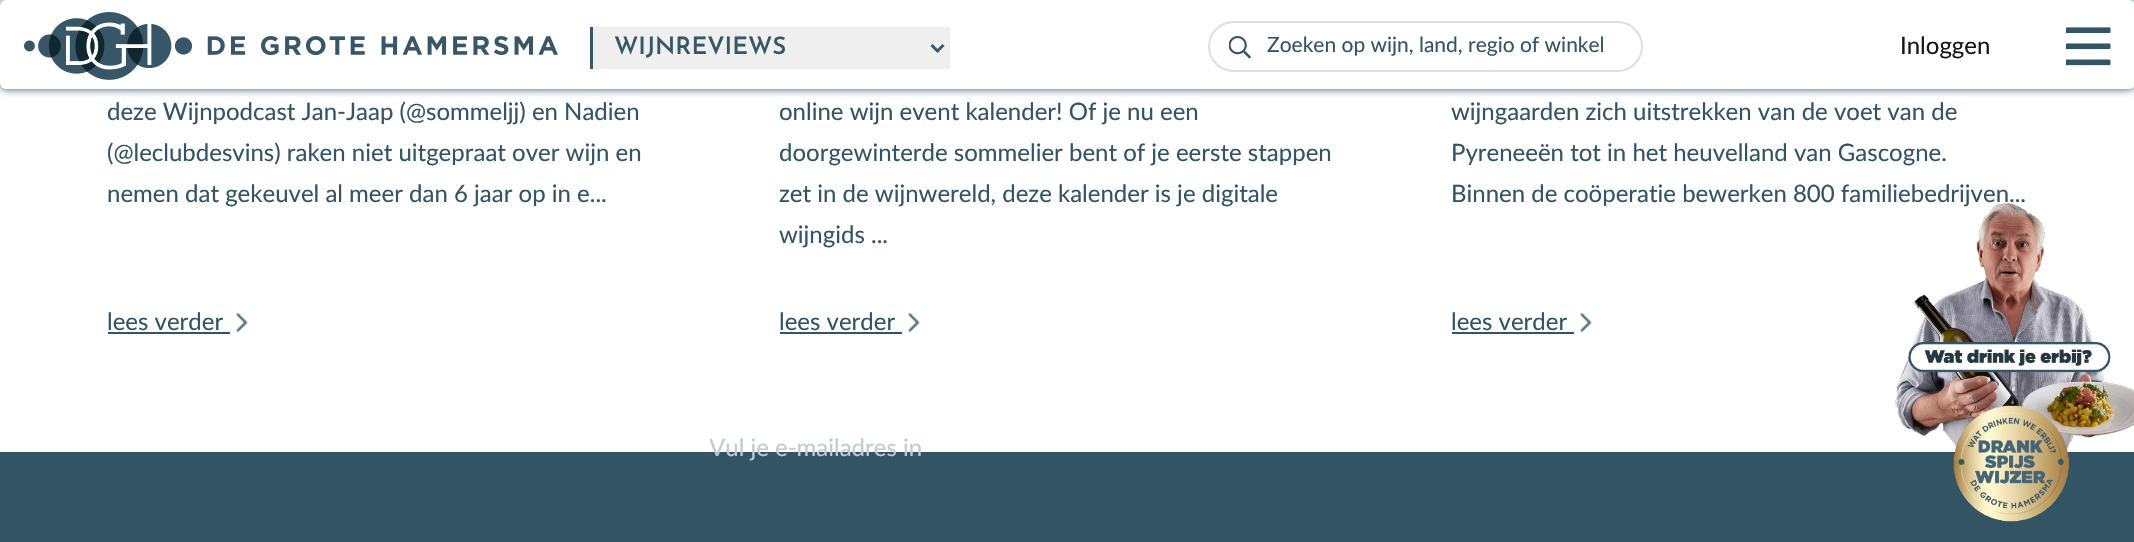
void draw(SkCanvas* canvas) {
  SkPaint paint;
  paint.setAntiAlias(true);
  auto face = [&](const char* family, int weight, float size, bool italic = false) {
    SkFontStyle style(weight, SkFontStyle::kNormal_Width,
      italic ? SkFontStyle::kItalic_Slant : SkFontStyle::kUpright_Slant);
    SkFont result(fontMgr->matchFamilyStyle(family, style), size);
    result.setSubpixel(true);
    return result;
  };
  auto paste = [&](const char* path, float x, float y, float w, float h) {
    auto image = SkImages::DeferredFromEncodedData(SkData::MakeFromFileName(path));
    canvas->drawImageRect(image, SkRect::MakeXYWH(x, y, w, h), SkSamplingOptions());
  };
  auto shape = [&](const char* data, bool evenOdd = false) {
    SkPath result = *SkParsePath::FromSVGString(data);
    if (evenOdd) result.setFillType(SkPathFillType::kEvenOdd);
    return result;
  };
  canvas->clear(0xffffffff);
  paint.setColor(0xff325464);
  paint.setMaskFilter(SkMaskFilter::MakeBlur(kNormal_SkBlurStyle, 4.5f));
  canvas->drawRoundRect(SkRect::MakeXYWH(0, 0, 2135, 89), 6, 6, paint);
  paint.setMaskFilter(nullptr);
  paint.setColor(0xffffffff);
  canvas->drawRoundRect(SkRect::MakeXYWH(0, 0, 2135, 89), 6, 6, paint);
  paste("img/1.png", 24, 12, 534, 68);
  paint.setColor(0xffefefef);
  canvas->drawRect(SkRect::MakeXYWH(593, 27, 357, 42), paint);
  paint.setColor(0xff385868);
  canvas->drawRect(SkRect::MakeXYWH(590, 27, 3, 42), paint);
  paint.setStroke(true);
  paint.setStrokeWidth(3);
  canvas->drawPath(shape("M931.5 45L937.5 51L943.5 45"), paint);
  paste("img/2.png", 1229, 36, 22, 23);
  paint.setStrokeWidth(2);
  paint.setColor(0xffdfdfdf);
  canvas->drawRoundRect(SkRect::MakeXYWH(1209, 22, 433, 49), 24.5f, 24.5f, paint);
  paste("img/3.png", 2066, 27, 45, 39);
  paint.setStroke(false);
  paint.setColor(0xff325464);
  canvas->drawRect(SkRect::MakeXYWH(108, 332, 122, 2), paint);
  paste("img/4.png", 235, 313, 13, 20);
  canvas->drawRect(SkRect::MakeXYWH(780, 332, 122, 2), paint);
  paste("img/4.png", 907, 313, 13, 20);
  canvas->drawRect(SkRect::MakeXYWH(1452, 332, 122, 2), paint);
  paste("img/4.png", 1579, 313, 13, 20);
  canvas->drawRect(SkRect::MakeXYWH(0, 452, 2134, 90), paint);
  auto f0 = face("Josefin Sans", 600, 24);
  paint.setColor(0xff385868);
  canvas->drawString("WIJNREVIEWS", 614, 54, f0, paint);
  auto f1 = face("Lato", 400, 21);
  paint.setColor(0xff325464);
  canvas->drawString("Zoeken op wijn, land, regio of winkel", 1267, 52, f1, paint);
  auto f2 = face("Lato", 400, 24);
  paint.setColor(0xff151515);
  canvas->drawString("Inloggen", 1900, 54, f2, paint);
  paint.setColor(0xff325464);
  {
    const struct { const char* s; float x, y; } items[] = {
      {"deze Wijnpodcast Jan-Jaap (@sommeljj) en Nadien", 107, 120},
      {"(@leclubdesvins) raken niet uitgepraat over wijn en", 107, 161},
      {"nemen dat gekeuvel al meer dan 6 jaar op in e...", 107, 202},
      {"lees verder", 107, 330},
      {"online wijn event kalender! Of je nu een", 779, 120},
      {"doorgewinterde sommelier bent of je eerste stappen", 779, 161},
      {"zet in de wijnwereld, deze kalender is je digitale", 779, 202},
      {"wijngids ...", 779, 243},
      {"lees verder", 779, 330},
      {"wijngaarden zich uitstrekken van de voet van de", 1451, 120},
      {"Pyreneeën tot in het heuvelland van Gascogne.", 1451, 161},
      {"Binnen de coöperatie bewerken 800 familiebedrijven...", 1451, 202},
      {"lees verder", 1451, 330},
    };
    for (auto [s, x, y] : items) {
      canvas->drawString(s, x, y, f2, paint);
    }
  }
  paste("img/5.png", 1895, 203, 239, 319);
  canvas->save();
  canvas->clipRect(SkRect::MakeXYWH(710, 435, 717, 29));
  paint.setColor(0xffc1cbd0);
  canvas->drawString("Vul je e-mailadres in", 709, 456, f2, paint);
  canvas->restore();
}
